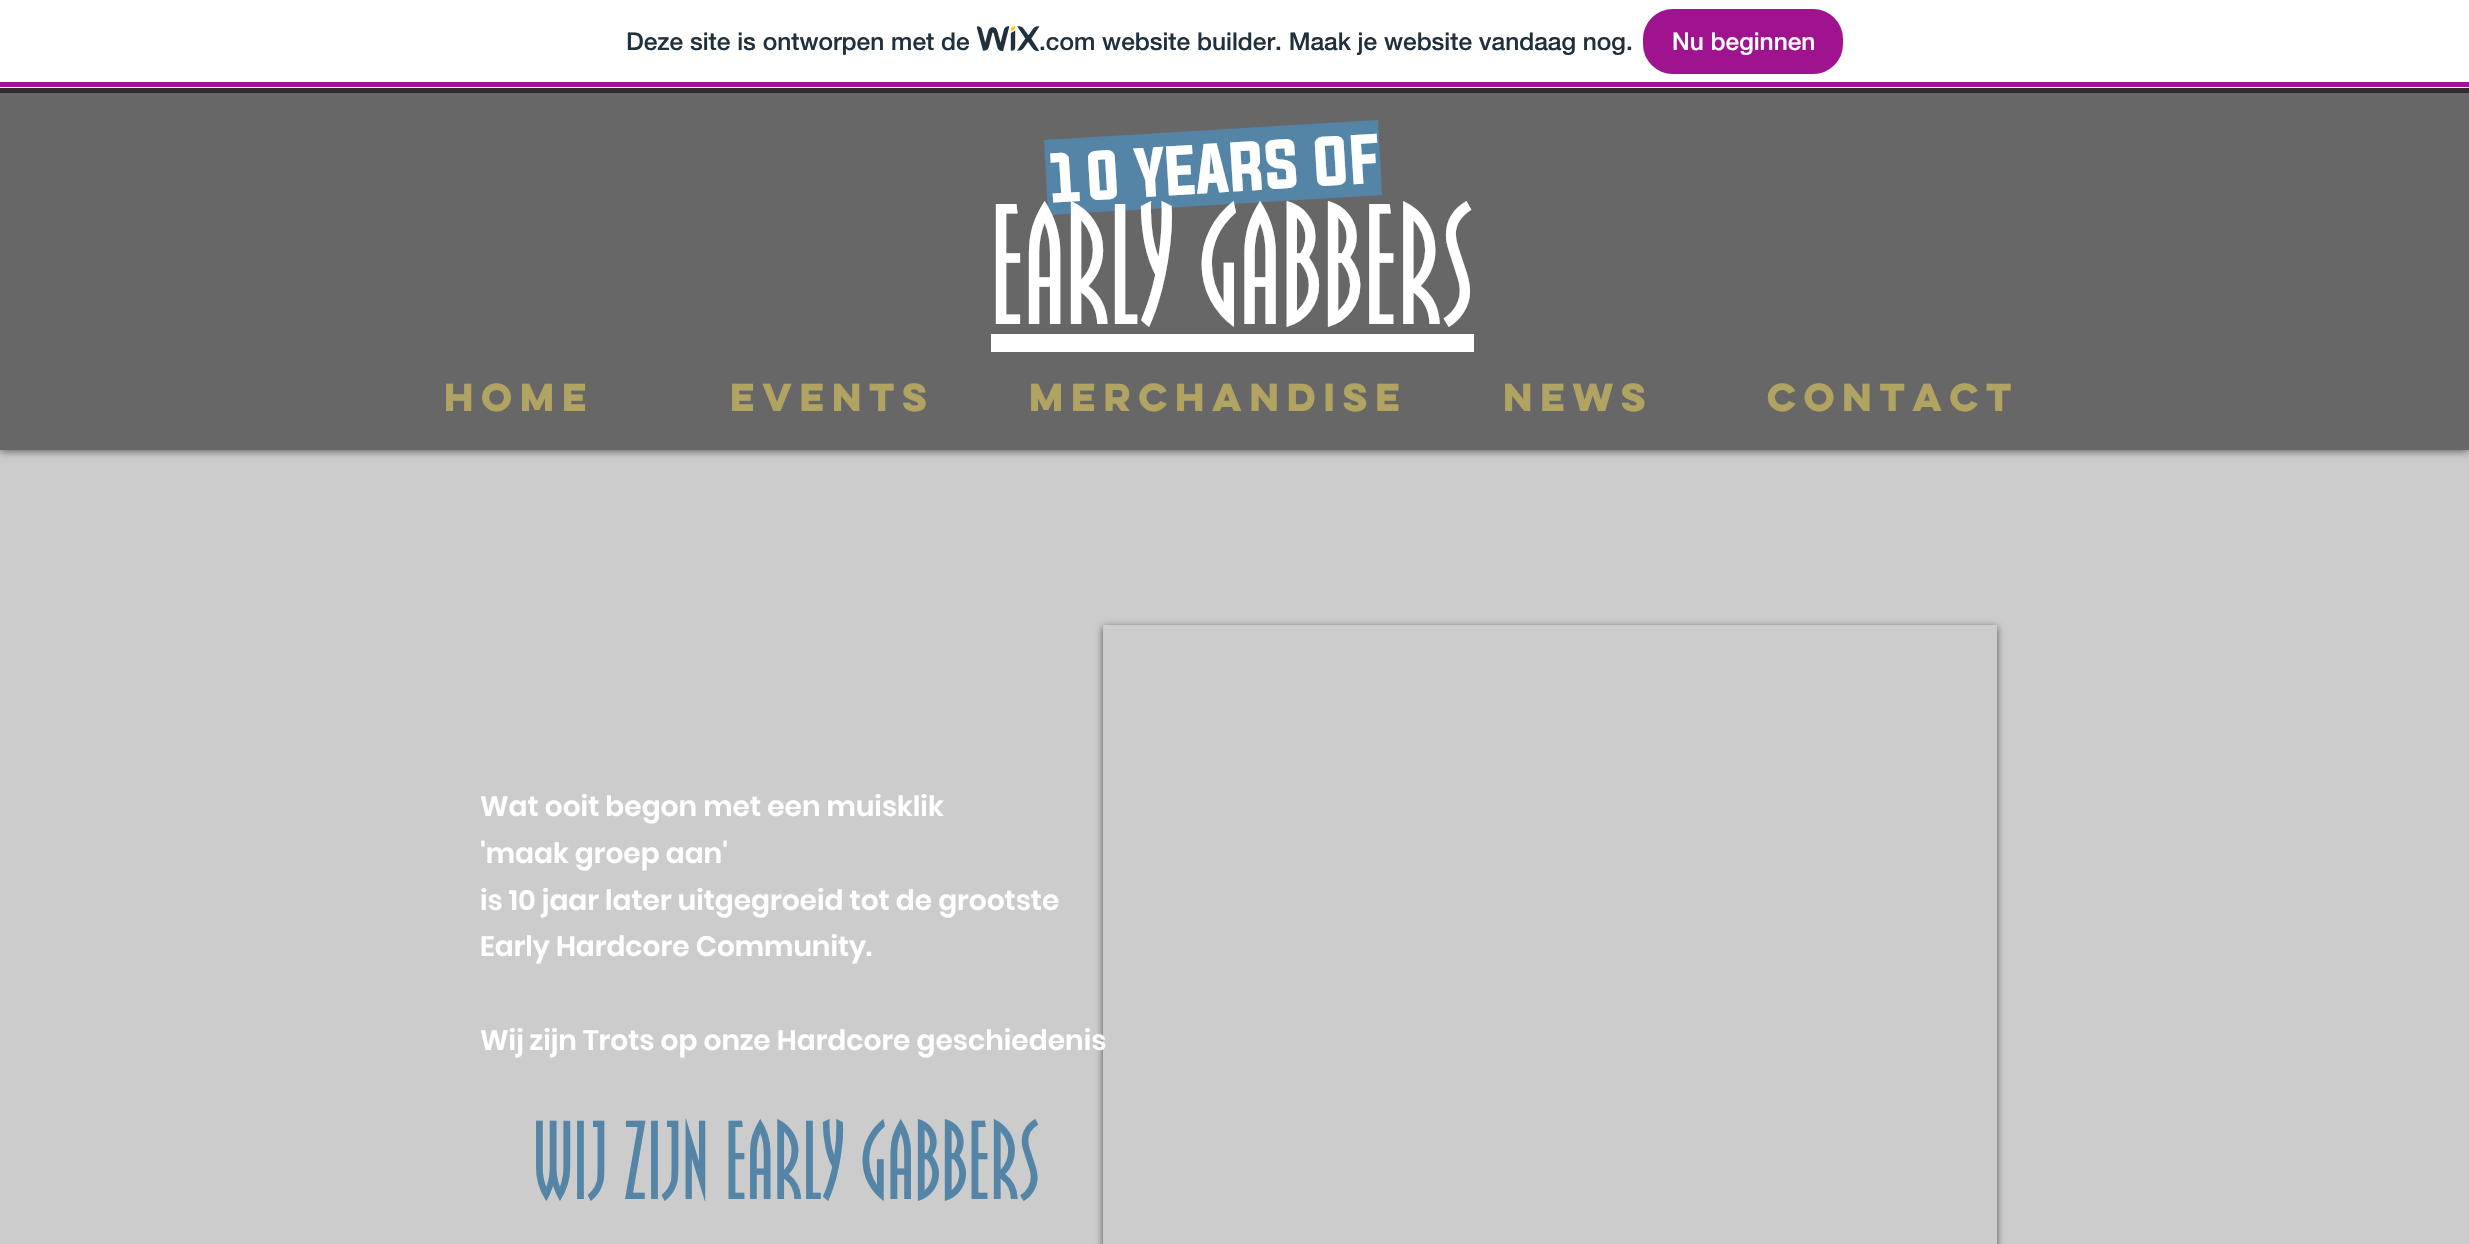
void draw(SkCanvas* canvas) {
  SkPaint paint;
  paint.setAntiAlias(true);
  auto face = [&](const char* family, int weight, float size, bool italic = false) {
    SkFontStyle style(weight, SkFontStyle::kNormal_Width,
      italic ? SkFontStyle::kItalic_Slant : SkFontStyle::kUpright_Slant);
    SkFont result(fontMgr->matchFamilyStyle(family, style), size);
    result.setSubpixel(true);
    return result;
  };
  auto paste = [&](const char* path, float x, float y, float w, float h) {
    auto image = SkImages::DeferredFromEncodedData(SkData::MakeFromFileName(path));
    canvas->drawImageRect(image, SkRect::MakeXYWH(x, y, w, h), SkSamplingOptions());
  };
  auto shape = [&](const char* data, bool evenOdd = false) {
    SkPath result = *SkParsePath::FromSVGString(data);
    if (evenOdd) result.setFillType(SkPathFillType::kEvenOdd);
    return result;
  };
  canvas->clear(0xffcccccc);
  canvas->save();
  canvas->clipPath(shape("M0 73H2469V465H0ZM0 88H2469V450H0Z", true), true);
  paint.setColor(0xb3000000);
  paint.setMaskFilter(SkMaskFilter::MakeBlur(kNormal_SkBlurStyle, 4.5f));
  canvas->drawRect(SkRect::MakeXYWH(0, 88, 2469, 362), paint);
  paint.setMaskFilter(nullptr);
  canvas->restore();
  paint.setColor(0xffffffff);
  canvas->drawRect(SkRect::MakeXYWH(0, 0, 2469, 88), paint);
  paint.setColor(0xffa0138e);
  canvas->drawRect(SkRect::MakeXYWH(0, 82, 2469, 5), paint);
  paste("img/1.png", 977, 26, 63, 26);
  canvas->drawRoundRect(SkRect::MakeXYWH(1644, 10, 198, 63), 29, 29, paint);
  paint.setStroke(true);
  paint.setStrokeWidth(2);
  canvas->drawRoundRect(SkRect::MakeXYWH(1644, 10, 198, 63), 29, 29, paint);
  paint.setStroke(false);
  paint.setColor(0x99232323);
  canvas->drawRect(SkRect::MakeXYWH(0, 93, 2469, 357), paint);
  paint.setColor(0xff2f2e2e);
  canvas->drawRect(SkRect::MakeXYWH(0, 88, 2469, 5), paint);
  paint.setColor(0xff5485a6);
  canvas->drawPath(shape("M1044 140L1378 120L1382 195L1048 215Z"), paint);
  paint.setColor(0xffffffff);
  canvas->drawRect(SkRect::MakeXYWH(991, 334, 483, 18), paint);
  canvas->save();
  canvas->clipPath(shape("M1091 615H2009V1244H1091ZM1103 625H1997V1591H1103Z", true), true);
  paint.setColor(0x99000000);
  paint.setMaskFilter(SkMaskFilter::MakeBlur(kNormal_SkBlurStyle, 3.5f));
  canvas->drawRect(SkRect::MakeXYWH(1103, 627, 894, 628), paint);
  paint.setMaskFilter(nullptr);
  canvas->restore();
  auto f0 = face("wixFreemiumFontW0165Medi", 500, 24.5f);
  paint.setColor(0xff20303c);
  canvas->drawString("Deze site is ontworpen met de", 626, 50, f0, paint);
  canvas->drawString(".com website builder. Maak je website vandaag nog.", 1039, 50, f0, paint);
  paint.setColor(0xffffffff);
  canvas->drawString("Nu beginnen", 1672, 50, f0, paint);
  auto f1 = face("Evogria", 400, 59.5f);
  canvas->save();
  canvas->rotate(-3.5f, 1047, 203);
  canvas->drawString("10 YEARS OF", 1047, 203, f1, paint);
  canvas->restore();
  auto f2 = face("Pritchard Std", 400, 180);
  canvas->drawString("EARLY GABBERS", 990, 324, f2, paint);
  auto f3 = face("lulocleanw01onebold", 700, 35);
  paint.setColor(0xffb1a361);
  {
    const struct { const char* s; float x, y; } items[] = {
      {"HOME", 444, 411},
      {"Events", 730, 411},
      {"Merchandise", 1029, 411},
      {"NEWS", 1503, 411},
      {"CONTACT", 1767, 411},
    };
    for (auto [s, x, y] : items) {
      canvas->drawString(s, x, y, f3, paint);
    }
  }
  auto f4 = face("Poppins", 600, 28);
  paint.setColor(0xffffffff);
  {
    const struct { const char* s; float x, y; } items[] = {
      {"Wat ooit begon met een muisklik", 480, 816},
      {"'maak groep aan'", 480, 863},
      {"is 10 jaar later uitgegroeid tot de grootste", 480, 910},
      {"Early Hardcore Community.", 480, 956},
      {"Wij zijn Trots op onze Hardcore geschiedenis", 480, 1050},
    };
    for (auto [s, x, y] : items) {
      canvas->drawString(s, x, y, f4, paint);
    }
  }
  auto f5 = face("Pritchard Std", 400, 117.25f);
  paint.setColor(0xff5485a6);
  canvas->drawString("WIJ ZIJN EARLY GABBERS", 533, 1199, f5, paint);
}
